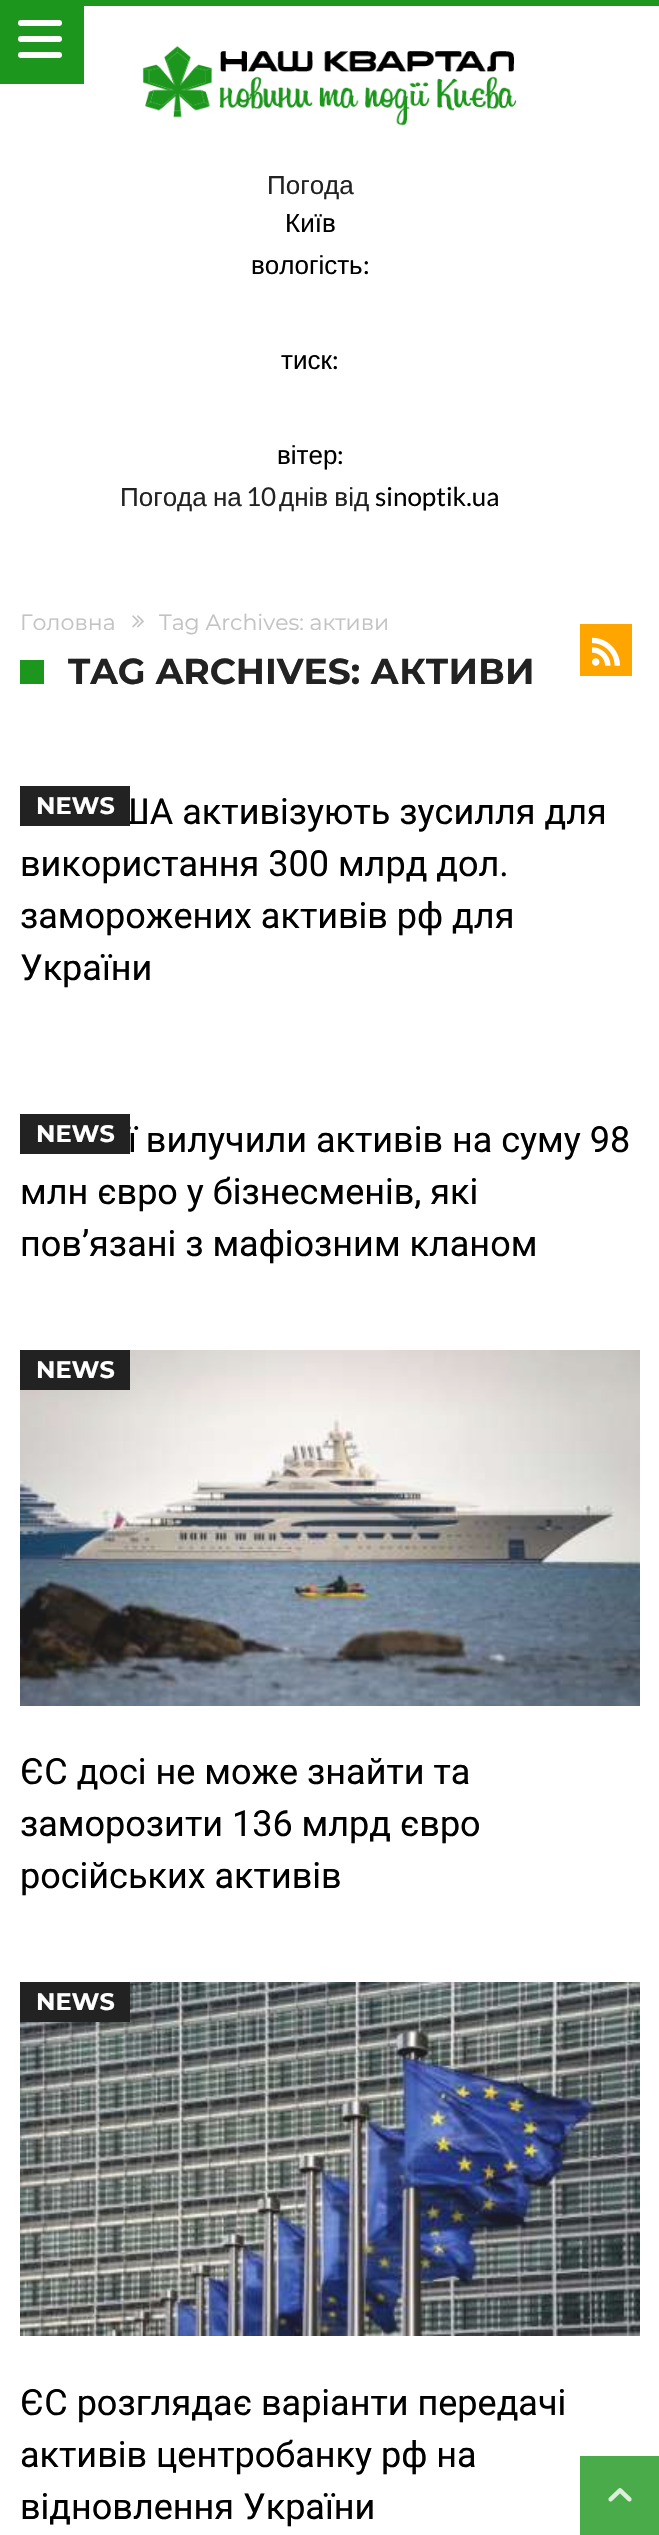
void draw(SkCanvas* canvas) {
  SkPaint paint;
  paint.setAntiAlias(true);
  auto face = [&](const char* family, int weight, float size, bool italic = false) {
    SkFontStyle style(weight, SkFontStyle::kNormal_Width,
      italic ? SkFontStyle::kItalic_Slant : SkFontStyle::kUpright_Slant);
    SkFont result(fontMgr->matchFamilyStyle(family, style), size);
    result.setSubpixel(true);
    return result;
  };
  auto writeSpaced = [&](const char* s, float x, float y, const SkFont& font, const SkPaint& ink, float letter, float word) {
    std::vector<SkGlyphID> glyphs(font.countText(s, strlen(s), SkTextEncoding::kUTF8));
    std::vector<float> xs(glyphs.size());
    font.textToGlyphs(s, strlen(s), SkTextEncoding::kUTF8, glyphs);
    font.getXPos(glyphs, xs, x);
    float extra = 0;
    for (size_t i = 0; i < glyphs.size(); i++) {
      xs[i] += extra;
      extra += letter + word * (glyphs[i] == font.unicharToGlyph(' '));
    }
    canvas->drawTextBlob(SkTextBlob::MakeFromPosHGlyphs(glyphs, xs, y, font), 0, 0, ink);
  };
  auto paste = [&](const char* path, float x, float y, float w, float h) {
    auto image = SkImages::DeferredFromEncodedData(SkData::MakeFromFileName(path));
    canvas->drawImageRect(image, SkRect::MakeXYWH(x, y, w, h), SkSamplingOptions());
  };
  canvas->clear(0xffffffff);
  paint.setColor(0xff1c961c);
  canvas->drawRect(SkRect::MakeXYWH(84, 0, 575, 6), paint);
  canvas->drawRect(SkRect::MakeXYWH(0, 0, 84, 84), paint);
  paint.setColor(0xffffffff);
  canvas->drawRoundRect(SkRect::MakeXYWH(18, 20, 44, 6), 3, 3, paint);
  canvas->drawRoundRect(SkRect::MakeXYWH(18, 36, 44, 6), 3, 3, paint);
  canvas->drawRoundRect(SkRect::MakeXYWH(18, 52, 44, 6), 3, 3, paint);
  paste("img/1.png", 142, 46, 375, 80);
  paste("img/2.png", 132, 615, 12, 13);
  paint.setColor(0xff1c961c);
  canvas->drawRect(SkRect::MakeXYWH(20, 660, 24, 24), paint);
  paint.setColor(0xffffa500);
  canvas->drawRect(SkRect::MakeXYWH(580, 624, 52, 52), paint);
  paste("img/3.png", 592, 637, 28, 29);
  paste("img/4.png", 20, 1350, 620, 356);
  paint.setColor(0xff222222);
  canvas->drawRect(SkRect::MakeXYWH(20, 1350, 110, 40), paint);
  paste("img/5.png", 20, 1982, 620, 354);
  canvas->drawRect(SkRect::MakeXYWH(20, 1982, 110, 40), paint);
  paint.setColor(0xff49ab49);
  canvas->drawRect(SkRect::MakeXYWH(580, 2456, 79, 79), paint);
  paste("img/6.png", 608, 2488, 24, 14);
  auto f0 = face("Liberation Sans", 400, 26);
  paint.setColor(0xff222222);
  canvas->drawString("Погода", 267, 194, f0, paint);
  paint.setColor(0xff000000);
  canvas->drawString("Київ", 285, 232, f0, paint);
  canvas->drawString("вологість", 251, 274, f0, paint);
  auto f1 = face("Lato", 400, 26);
  canvas->drawString(":", 363, 274, f1, paint);
  canvas->drawString("тиск", 281, 369, f0, paint);
  canvas->drawString(":", 332, 369, f1, paint);
  canvas->drawString("вітер", 277, 464, f0, paint);
  canvas->drawString(":", 337, 464, f1, paint);
  paint.setColor(0xff222222);
  writeSpaced("Погода на", 120, 506, f0, paint, 0, -1);
  canvas->drawString("10", 246, 506, f1, paint);
  writeSpaced("днів від", 279, 506, f0, paint, 0, -1);
  paint.setColor(0xff000000);
  canvas->drawString("sinoptik.ua", 375, 506, f1, paint);
  auto f2 = face("Montserrat", 400, 22);
  paint.setColor(0xffc3c3c3);
  canvas->drawString("Головна", 20, 630, f2, paint);
  canvas->drawString("Tag Archives: активи", 159, 630, f2, paint);
  auto f3 = face("Montserrat", 700, 36);
  paint.setColor(0xff222222);
  canvas->drawString("TAG ARCHIVES: АКТИВИ", 68, 684, f3, paint);
  auto f4 = face("Roboto", 400, 36);
  paint.setColor(0xff000000);
  canvas->drawString("ША активізують зусилля для", 116, 824, f4, paint);
  paint.setColor(0xff222222);
  canvas->drawRect(SkRect::MakeXYWH(20, 786, 110, 40), paint);
  auto f5 = face("Montserrat", 700, 24);
  paint.setColor(0xffffffff);
  canvas->drawString("NEWS", 36, 814, f5, paint);
  paint.setColor(0xff000000);
  {
    const struct { const char* s; float x, y; } items[] = {
      {"використання 300 млрд дол.", 20, 876},
      {"заморожених активів рф для", 20, 928},
      {"України", 20, 980},
      {"ї вилучили активів на суму 98", 128, 1152},
    };
    for (auto [s, x, y] : items) {
      canvas->drawString(s, x, y, f4, paint);
    }
  }
  paint.setColor(0xff222222);
  canvas->drawRect(SkRect::MakeXYWH(20, 1114, 110, 40), paint);
  paint.setColor(0xffffffff);
  canvas->drawString("NEWS", 36, 1142, f5, paint);
  paint.setColor(0xff000000);
  canvas->drawString("млн євро у бізнесменів, які", 20, 1204, f4, paint);
  canvas->drawString("пов’язані з мафіозним кланом", 20, 1256, f4, paint);
  paint.setColor(0xffffffff);
  canvas->drawString("NEWS", 36, 1378, f5, paint);
  paint.setColor(0xff000000);
  {
    const struct { const char* s; float x, y; } items[] = {
      {"ЄС досі не може знайти та", 20, 1784},
      {"заморозити 136 млрд євро", 20, 1836},
      {"російських активів", 20, 1888},
    };
    for (auto [s, x, y] : items) {
      canvas->drawString(s, x, y, f4, paint);
    }
  }
  paint.setColor(0xffffffff);
  canvas->drawString("NEWS", 36, 2010, f5, paint);
  paint.setColor(0xff000000);
  {
    const struct { const char* s; float x, y; } items[] = {
      {"ЄС розглядає варіанти передачі", 20, 2415},
      {"активів центробанку рф на", 20, 2467},
      {"відновлення України", 20, 2519},
    };
    for (auto [s, x, y] : items) {
      canvas->drawString(s, x, y, f4, paint);
    }
  }
}
